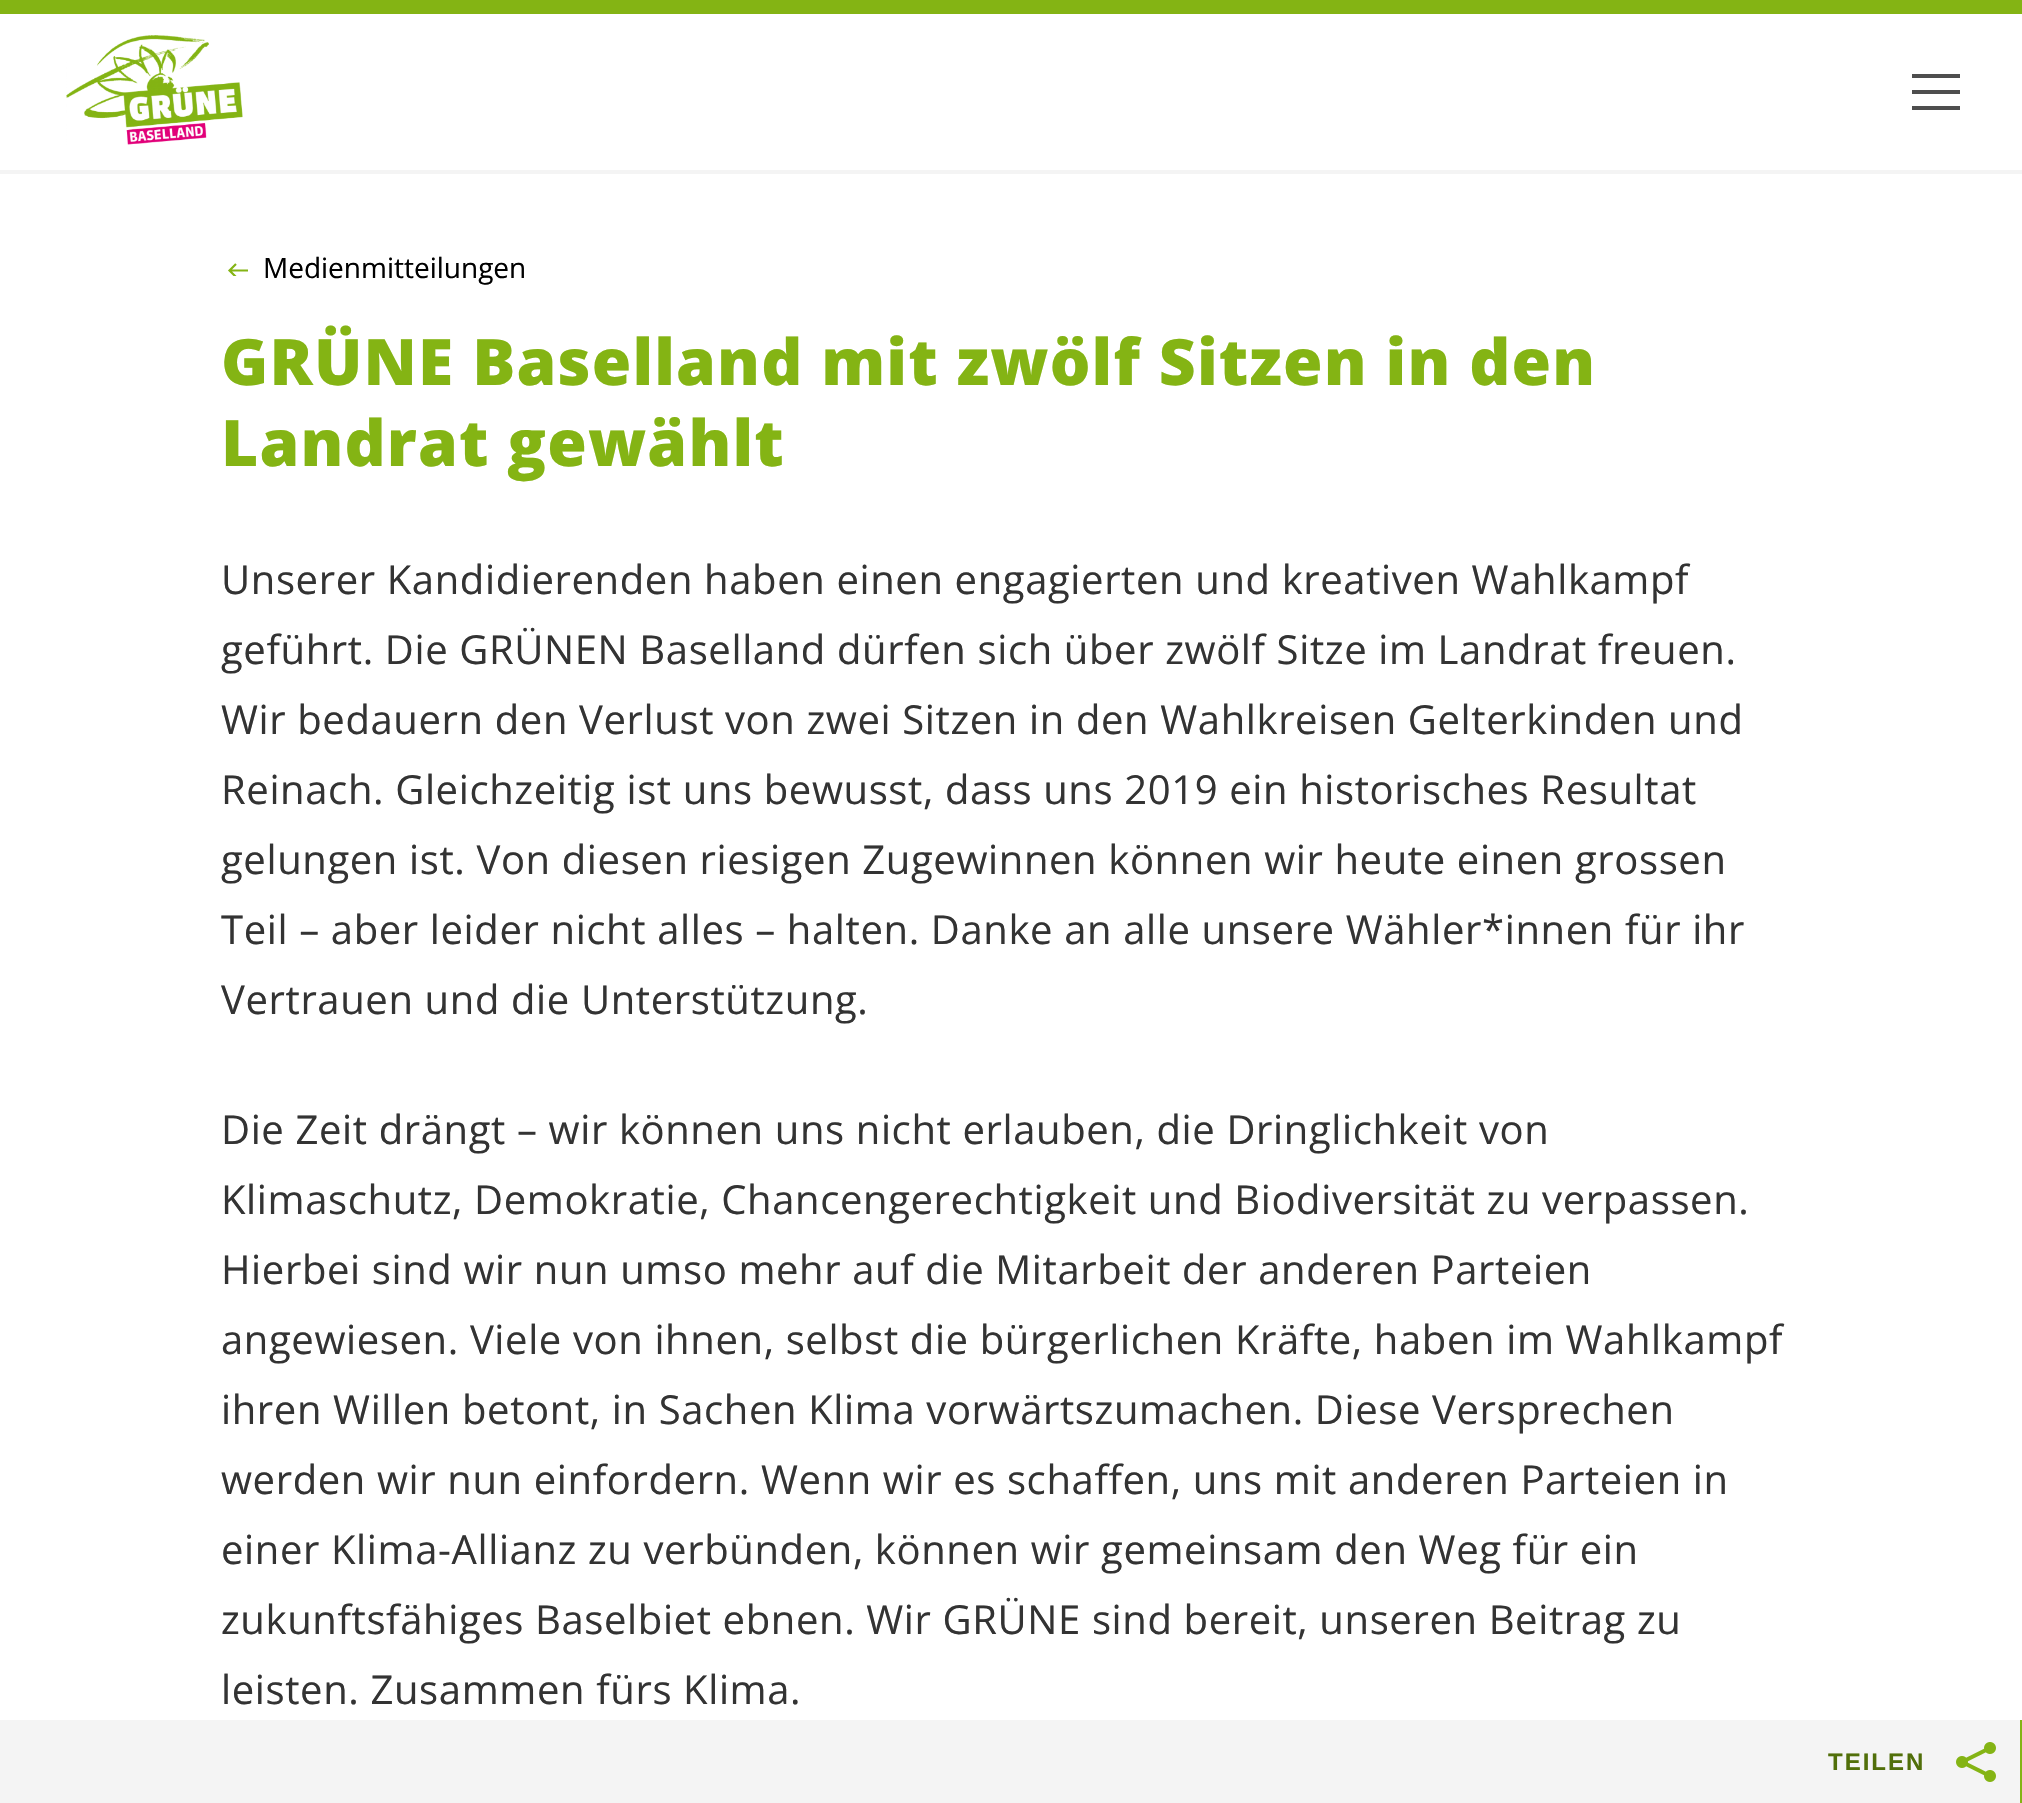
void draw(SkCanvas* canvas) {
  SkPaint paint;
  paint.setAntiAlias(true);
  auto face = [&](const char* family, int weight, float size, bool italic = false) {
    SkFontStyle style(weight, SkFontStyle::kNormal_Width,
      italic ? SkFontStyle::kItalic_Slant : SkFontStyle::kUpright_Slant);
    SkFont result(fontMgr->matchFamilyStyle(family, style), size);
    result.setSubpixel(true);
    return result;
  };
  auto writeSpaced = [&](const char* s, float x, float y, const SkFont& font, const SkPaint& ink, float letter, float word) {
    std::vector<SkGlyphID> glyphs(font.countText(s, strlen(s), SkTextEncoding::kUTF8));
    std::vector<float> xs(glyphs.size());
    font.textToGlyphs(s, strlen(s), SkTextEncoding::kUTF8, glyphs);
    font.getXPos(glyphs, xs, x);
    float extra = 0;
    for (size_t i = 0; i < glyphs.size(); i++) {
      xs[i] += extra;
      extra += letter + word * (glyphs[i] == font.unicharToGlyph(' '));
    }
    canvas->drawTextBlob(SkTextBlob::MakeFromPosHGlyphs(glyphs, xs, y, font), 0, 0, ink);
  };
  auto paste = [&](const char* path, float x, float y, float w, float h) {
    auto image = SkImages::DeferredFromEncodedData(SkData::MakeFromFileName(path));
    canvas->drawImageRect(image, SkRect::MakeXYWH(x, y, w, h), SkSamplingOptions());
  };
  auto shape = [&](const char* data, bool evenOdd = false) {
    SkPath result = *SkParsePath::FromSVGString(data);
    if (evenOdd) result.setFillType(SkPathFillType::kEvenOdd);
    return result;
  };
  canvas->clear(0xffffffff);
  paint.setColor(0xff84b414);
  canvas->drawRect(SkRect::MakeXYWH(0, 0, 2022, 14), paint);
  paint.setColor(0xfff4f4f4);
  canvas->drawRect(SkRect::MakeXYWH(0, 170, 2022, 4), paint);
  paste("img/1.png", 66, 35, 177, 110);
  {
    const struct { float x, y, w, h; SkColor color; } items[] = {
      {1912, 90, 48, 4, 0xff4e4e4e},
      {1912, 74, 48, 4, 0xff4e4e4e},
      {1912, 106, 48, 4, 0xff4e4e4e},
    };
    for (auto [x, y, w, h, color] : items) {
      paint.setColor(color);
      canvas->drawRect(SkRect::MakeXYWH(x, y, w, h), paint);
    }
  }
  canvas->save();
  canvas->clipRect(SkRect::MakeXYWH(226, 262, 22, 14));
  paint.setStroke(true);
  paint.setStrokeWidth(2.2f);
  paint.setColor(0xff84b414);
  canvas->drawPath(shape("M236 277L229.5 270.5L236 264M229.5 270.5H249.5"), paint);
  canvas->restore();
  paint.setStroke(false);
  paint.setColor(0xfff4f4f4);
  canvas->drawRect(SkRect::MakeXYWH(0, 1720, 2020, 83), paint);
  paint.setColor(0xff84b414);
  canvas->drawRect(SkRect::MakeXYWH(2020, 1720, 2, 83), paint);
  paste("img/2.png", 1956, 1742, 40, 40);
  auto f0 = face("Open Sans", 400, 28);
  paint.setColor(0xff000000);
  canvas->drawString("Medienmitteilungen", 263, 278, f0, paint);
  auto f1 = face("Open Sans", 800, 64);
  paint.setColor(0xff84b414);
  writeSpaced("GRÜNE Baselland mit zwölf Sitzen in den", 221, 385, f1, paint, 1.15f, 0);
  writeSpaced("Landrat gewählt", 221, 466, f1, paint, 1.15f, 0);
  auto f2 = face("Open Sans", 400, 40);
  paint.setColor(0xff333333);
  {
    const struct { const char* s; float x, y; } items[] = {
      {"Unserer Kandidierenden haben einen engagierten und kreativen Wahlkampf", 221, 594},
      {"geführt. Die GRÜNEN Baselland dürfen sich über zwölf Sitze im Landrat freuen.", 221, 664},
      {"Wir bedauern den Verlust von zwei Sitzen in den Wahlkreisen Gelterkinden und", 221, 734},
      {"Reinach. Gleichzeitig ist uns bewusst, dass uns 2019 ein historisches Resultat", 221, 804},
      {"gelungen ist. Von diesen riesigen Zugewinnen können wir heute einen grossen", 221, 874},
      {"Teil – aber leider nicht alles – halten. Danke an alle unsere Wähler*innen für ihr", 221, 944},
      {"Vertrauen und die Unterstützung.", 221, 1014},
      {"Die Zeit drängt – wir können uns nicht erlauben, die Dringlichkeit von", 221, 1144},
      {"Klimaschutz, Demokratie, Chancengerechtigkeit und Biodiversität zu verpassen.", 221, 1214},
      {"Hierbei sind wir nun umso mehr auf die Mitarbeit der anderen Parteien", 221, 1284},
      {"angewiesen. Viele von ihnen, selbst die bürgerlichen Kräfte, haben im Wahlkampf", 221, 1354},
      {"ihren Willen betont, in Sachen Klima vorwärtszumachen. Diese Versprechen", 221, 1424},
      {"werden wir nun einfordern. Wenn wir es schaffen, uns mit anderen Parteien in", 221, 1494},
      {"einer Klima-Allianz zu verbünden, können wir gemeinsam den Weg für ein", 221, 1564},
      {"zukunftsfähiges Baselbiet ebnen. Wir GRÜNE sind bereit, unseren Beitrag zu", 221, 1634},
      {"leisten. Zusammen fürs Klima.", 221, 1704},
    };
    for (auto [s, x, y] : items) {
      writeSpaced(s, x, y, f2, paint, 0.62f, 0);
    }
  }
  auto f3 = face("Liberation Sans", 700, 24);
  paint.setColor(0xff516f0a);
  writeSpaced("TEILEN", 1828, 1770, f3, paint, 2, 0);
}
